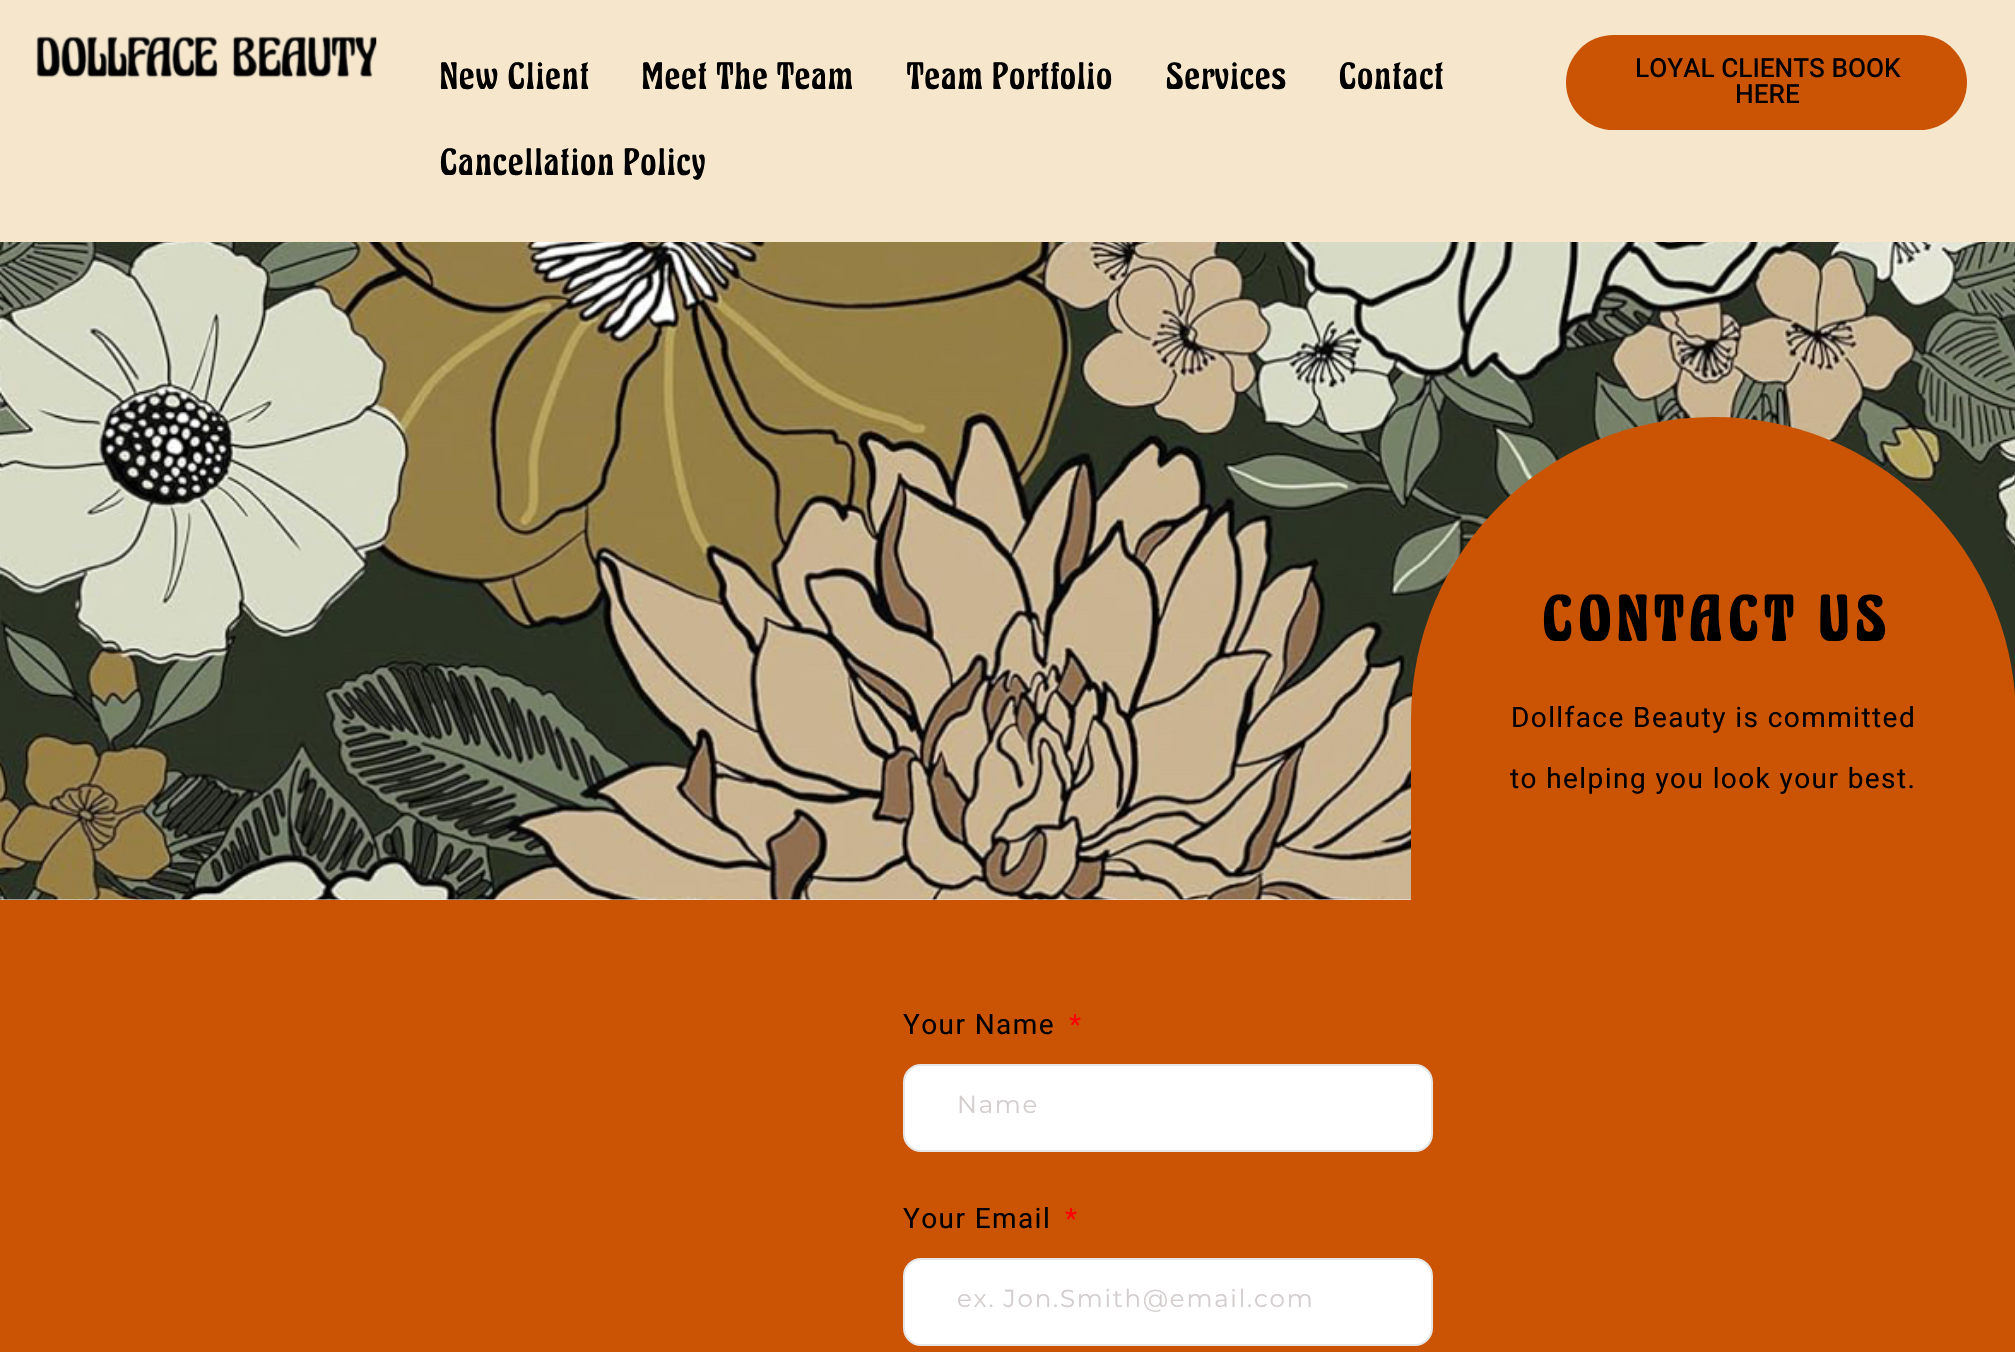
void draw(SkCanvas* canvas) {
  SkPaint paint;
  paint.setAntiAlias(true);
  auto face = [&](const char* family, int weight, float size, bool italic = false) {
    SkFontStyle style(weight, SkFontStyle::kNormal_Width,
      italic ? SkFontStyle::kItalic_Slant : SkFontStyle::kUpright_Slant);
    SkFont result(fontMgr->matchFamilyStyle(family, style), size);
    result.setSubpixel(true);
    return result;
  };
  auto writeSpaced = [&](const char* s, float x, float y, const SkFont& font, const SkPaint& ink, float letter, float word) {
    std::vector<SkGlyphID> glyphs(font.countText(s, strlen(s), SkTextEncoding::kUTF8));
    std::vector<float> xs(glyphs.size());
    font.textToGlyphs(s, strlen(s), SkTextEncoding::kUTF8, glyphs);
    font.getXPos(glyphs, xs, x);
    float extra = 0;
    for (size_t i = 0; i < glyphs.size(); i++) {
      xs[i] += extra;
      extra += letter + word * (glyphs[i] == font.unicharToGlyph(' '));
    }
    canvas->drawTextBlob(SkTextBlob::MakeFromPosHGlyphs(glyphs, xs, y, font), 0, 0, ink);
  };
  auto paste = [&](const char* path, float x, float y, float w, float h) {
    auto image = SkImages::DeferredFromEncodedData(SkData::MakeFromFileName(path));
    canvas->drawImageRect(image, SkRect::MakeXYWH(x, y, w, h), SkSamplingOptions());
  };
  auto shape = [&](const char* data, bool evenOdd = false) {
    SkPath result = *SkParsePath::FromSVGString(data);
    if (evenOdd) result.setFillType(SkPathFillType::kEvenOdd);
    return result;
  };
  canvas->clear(0xffffffff);
  paint.setColor(0xfff6e6cc);
  canvas->drawRect(SkRect::MakeXYWH(0, 0, 2015, 242), paint);
  paste("img/1.png", 36, 36, 341, 42);
  paint.setColor(0xffca5404);
  canvas->drawRoundRect(SkRect::MakeXYWH(1566, 35, 401, 95), 47.5f, 47.5f, paint);
  paste("img/2.png", 0, 242, 2015, 658);
  canvas->drawPath(shape("M1713.5 417C1880.5 417 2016 552.5 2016 719.5V900H1411V719.5C1411 552.5 1546.5 417 1713.5 417Z"), paint);
  canvas->drawRect(SkRect::MakeXYWH(0, 900, 2015, 452), paint);
  paint.setColor(0xffffffff);
  canvas->drawRoundRect(SkRect::MakeXYWH(904, 1065, 528, 86), 17, 17, paint);
  paint.setStroke(true);
  paint.setStrokeWidth(2);
  paint.setColor(0xffe7e7e7);
  canvas->drawRoundRect(SkRect::MakeXYWH(904, 1065, 528, 86), 17, 17, paint);
  paint.setStroke(false);
  paint.setColor(0xffffffff);
  canvas->drawRoundRect(SkRect::MakeXYWH(904, 1259, 528, 86), 17, 17, paint);
  paint.setStroke(true);
  paint.setColor(0xffe7e7e7);
  canvas->drawRoundRect(SkRect::MakeXYWH(904, 1259, 528, 86), 17, 17, paint);
  auto f0 = face("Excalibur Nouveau", 500, 33.25f);
  paint.setStroke(false);
  paint.setColor(0xff000000);
  {
    const struct { const char* s; float x, y; } items[] = {
      {"New Client", 438, 89},
      {"Meet The Team", 640, 89},
      {"Team Portfolio", 905, 89},
      {"Services", 1164, 89},
      {"Contact", 1337, 89},
      {"Cancellation Policy", 438, 175},
    };
    for (auto [s, x, y] : items) {
      canvas->drawString(s, x, y, f0, paint);
    }
  }
  auto f1 = face("Heebo", 500, 26.25f);
  canvas->drawString("LOYAL CLIENTS BOOK", 1635, 77, f1, paint);
  canvas->drawString("HERE", 1735, 103, f1, paint);
  auto f2 = face("Excalibur Nouveau", 700, 56);
  writeSpaced("CONTACT US", 1539, 641, f2, paint, 5.25f, 0);
  auto f3 = face("Heebo", 400, 28);
  {
    const struct { const char* s; float x, y; } items[] = {
      {"Dollface Beauty is committed", 1511, 727},
      {"to helping you look your best.", 1510, 788},
      {"Your Name", 903, 1034},
    };
    for (auto [s, x, y] : items) {
      writeSpaced(s, x, y, f3, paint, 1.4f, 0);
    }
  }
  paint.setColor(0xffff0000);
  writeSpaced("*", 1069, 1034, f3, paint, 1.4f, 0);
  auto f4 = face("Montserrat", 400, 24.5f);
  paint.setColor(0xffd3cdcd);
  writeSpaced("Name", 957, 1113, f4, paint, 1.75f, 0);
  paint.setColor(0xff000000);
  writeSpaced("Your Email", 903, 1228, f3, paint, 1.4f, 0);
  paint.setColor(0xffff0000);
  writeSpaced("*", 1065, 1228, f3, paint, 1.4f, 0);
  paint.setColor(0xffd3cdcd);
  writeSpaced("ex. Jon.Smith@email.com", 957, 1307, f4, paint, 1.75f, 0);
}
